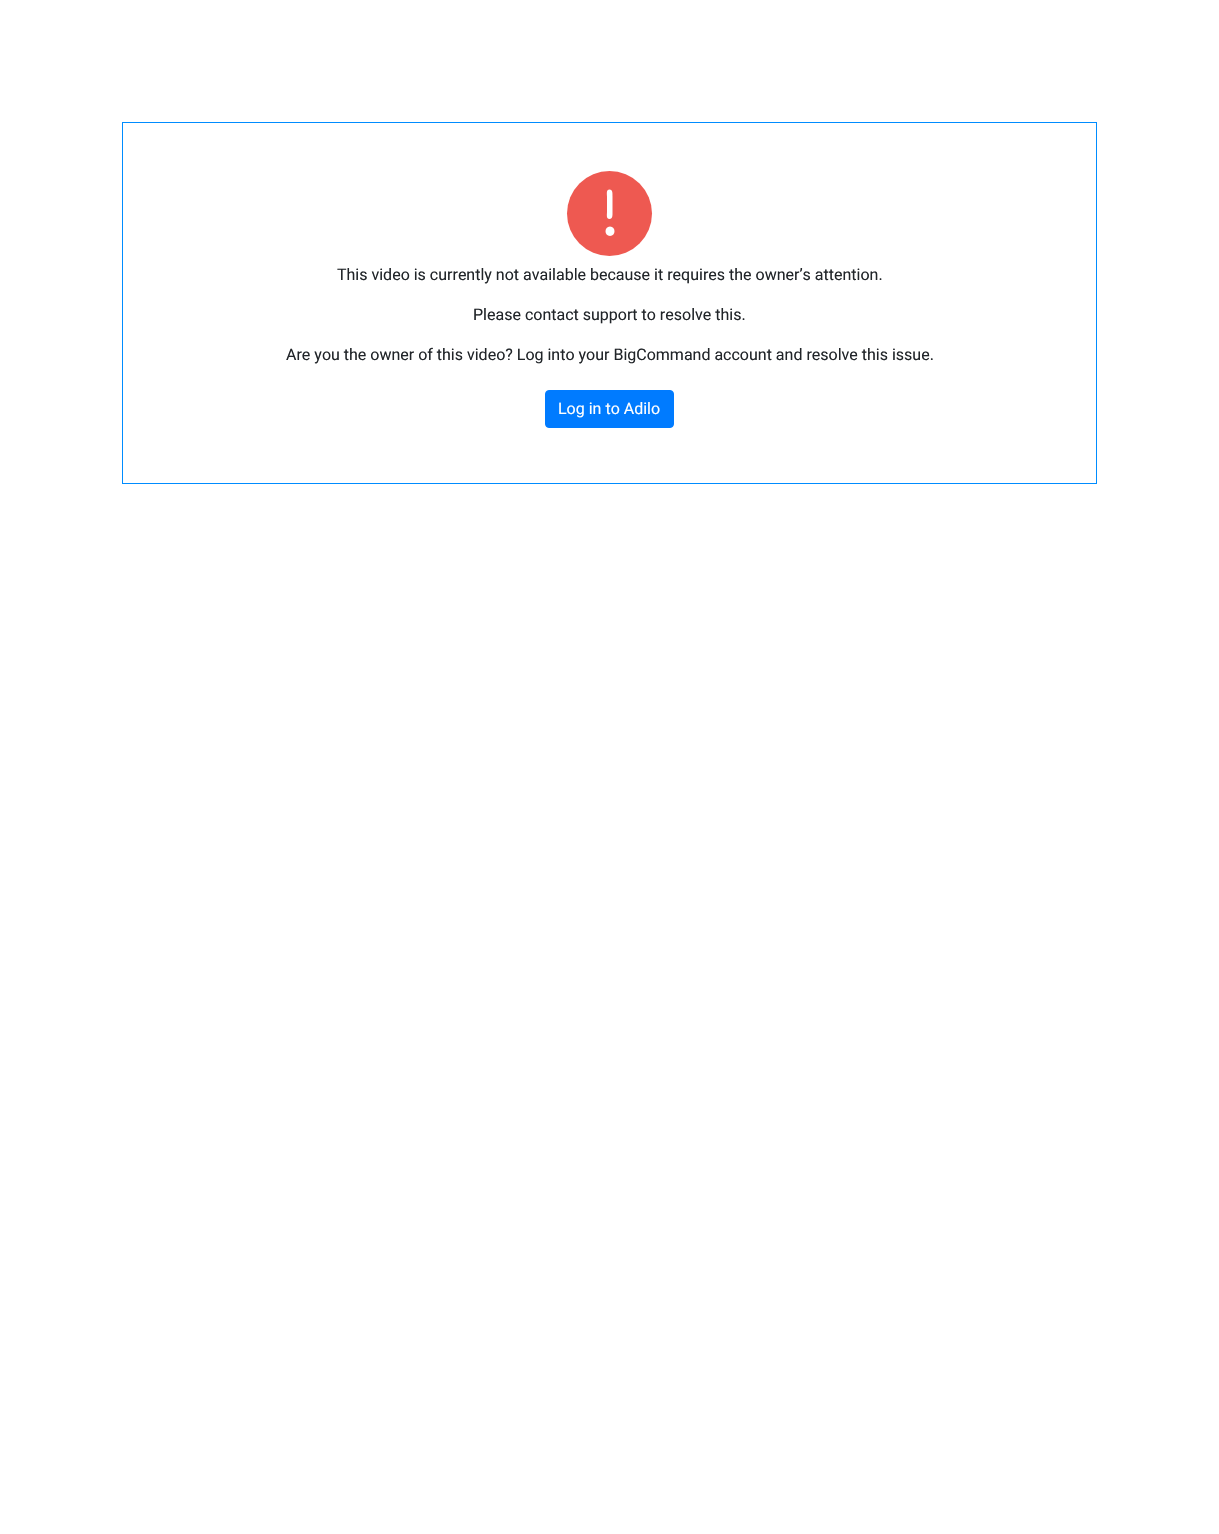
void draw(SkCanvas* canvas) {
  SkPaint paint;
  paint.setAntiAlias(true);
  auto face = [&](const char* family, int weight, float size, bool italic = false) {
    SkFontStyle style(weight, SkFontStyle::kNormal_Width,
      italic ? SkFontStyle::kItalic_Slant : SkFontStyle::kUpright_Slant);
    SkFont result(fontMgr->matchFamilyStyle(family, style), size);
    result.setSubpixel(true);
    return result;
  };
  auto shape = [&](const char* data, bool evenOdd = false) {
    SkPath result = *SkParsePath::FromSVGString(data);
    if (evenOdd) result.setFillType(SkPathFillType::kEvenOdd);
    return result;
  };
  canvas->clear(0xffffffff);
  paint.setStroke(true);
  paint.setStrokeWidth(1);
  paint.setColor(0xff008cff);
  canvas->drawRect(SkRect::MakeXYWH(122.5f, 122.5f, 974, 361), paint);
  paint.setStroke(false);
  paint.setColor(0xffee5951);
  canvas->drawCircle(609.5f, 213.5f, 42.5f, paint);
  paint.setColor(0xffffffff);
  canvas->drawPath(shape("M610 236C604 236 604 226.5 610 226.5C616 226.5 616 236 610 236ZM609.5 219C613 219 612.5 214.5 612.5 212V196.5C612.5 194 613 189.5 609.5 189.5C606 189.5 607 194 607 196.5V212C607 214.5 606 219 609.5 219Z"), paint);
  paint.setColor(0xff007bff);
  canvas->drawRoundRect(SkRect::MakeXYWH(545.5f, 390.5f, 128, 37), 3.5f, 3.5f, paint);
  paint.setStroke(true);
  canvas->drawRoundRect(SkRect::MakeXYWH(545.5f, 390.5f, 128, 37), 3.5f, 3.5f, paint);
  auto f0 = face("Roboto", 400, 16);
  paint.setStroke(false);
  paint.setColor(0xff212529);
  {
    const struct { const char* s; float x, y; } items[] = {
      {"This video is currently not available because it requires the owner’s attention.", 337, 280},
      {"Please contact support to resolve this.", 473, 320},
      {"Are you the owner of this video? Log into your BigCommand account and resolve this issue.", 286, 360},
    };
    for (auto [s, x, y] : items) {
      canvas->drawString(s, x, y, f0, paint);
    }
  }
  paint.setColor(0xffffffff);
  canvas->drawString("Log in to Adilo", 558, 414, f0, paint);
}
